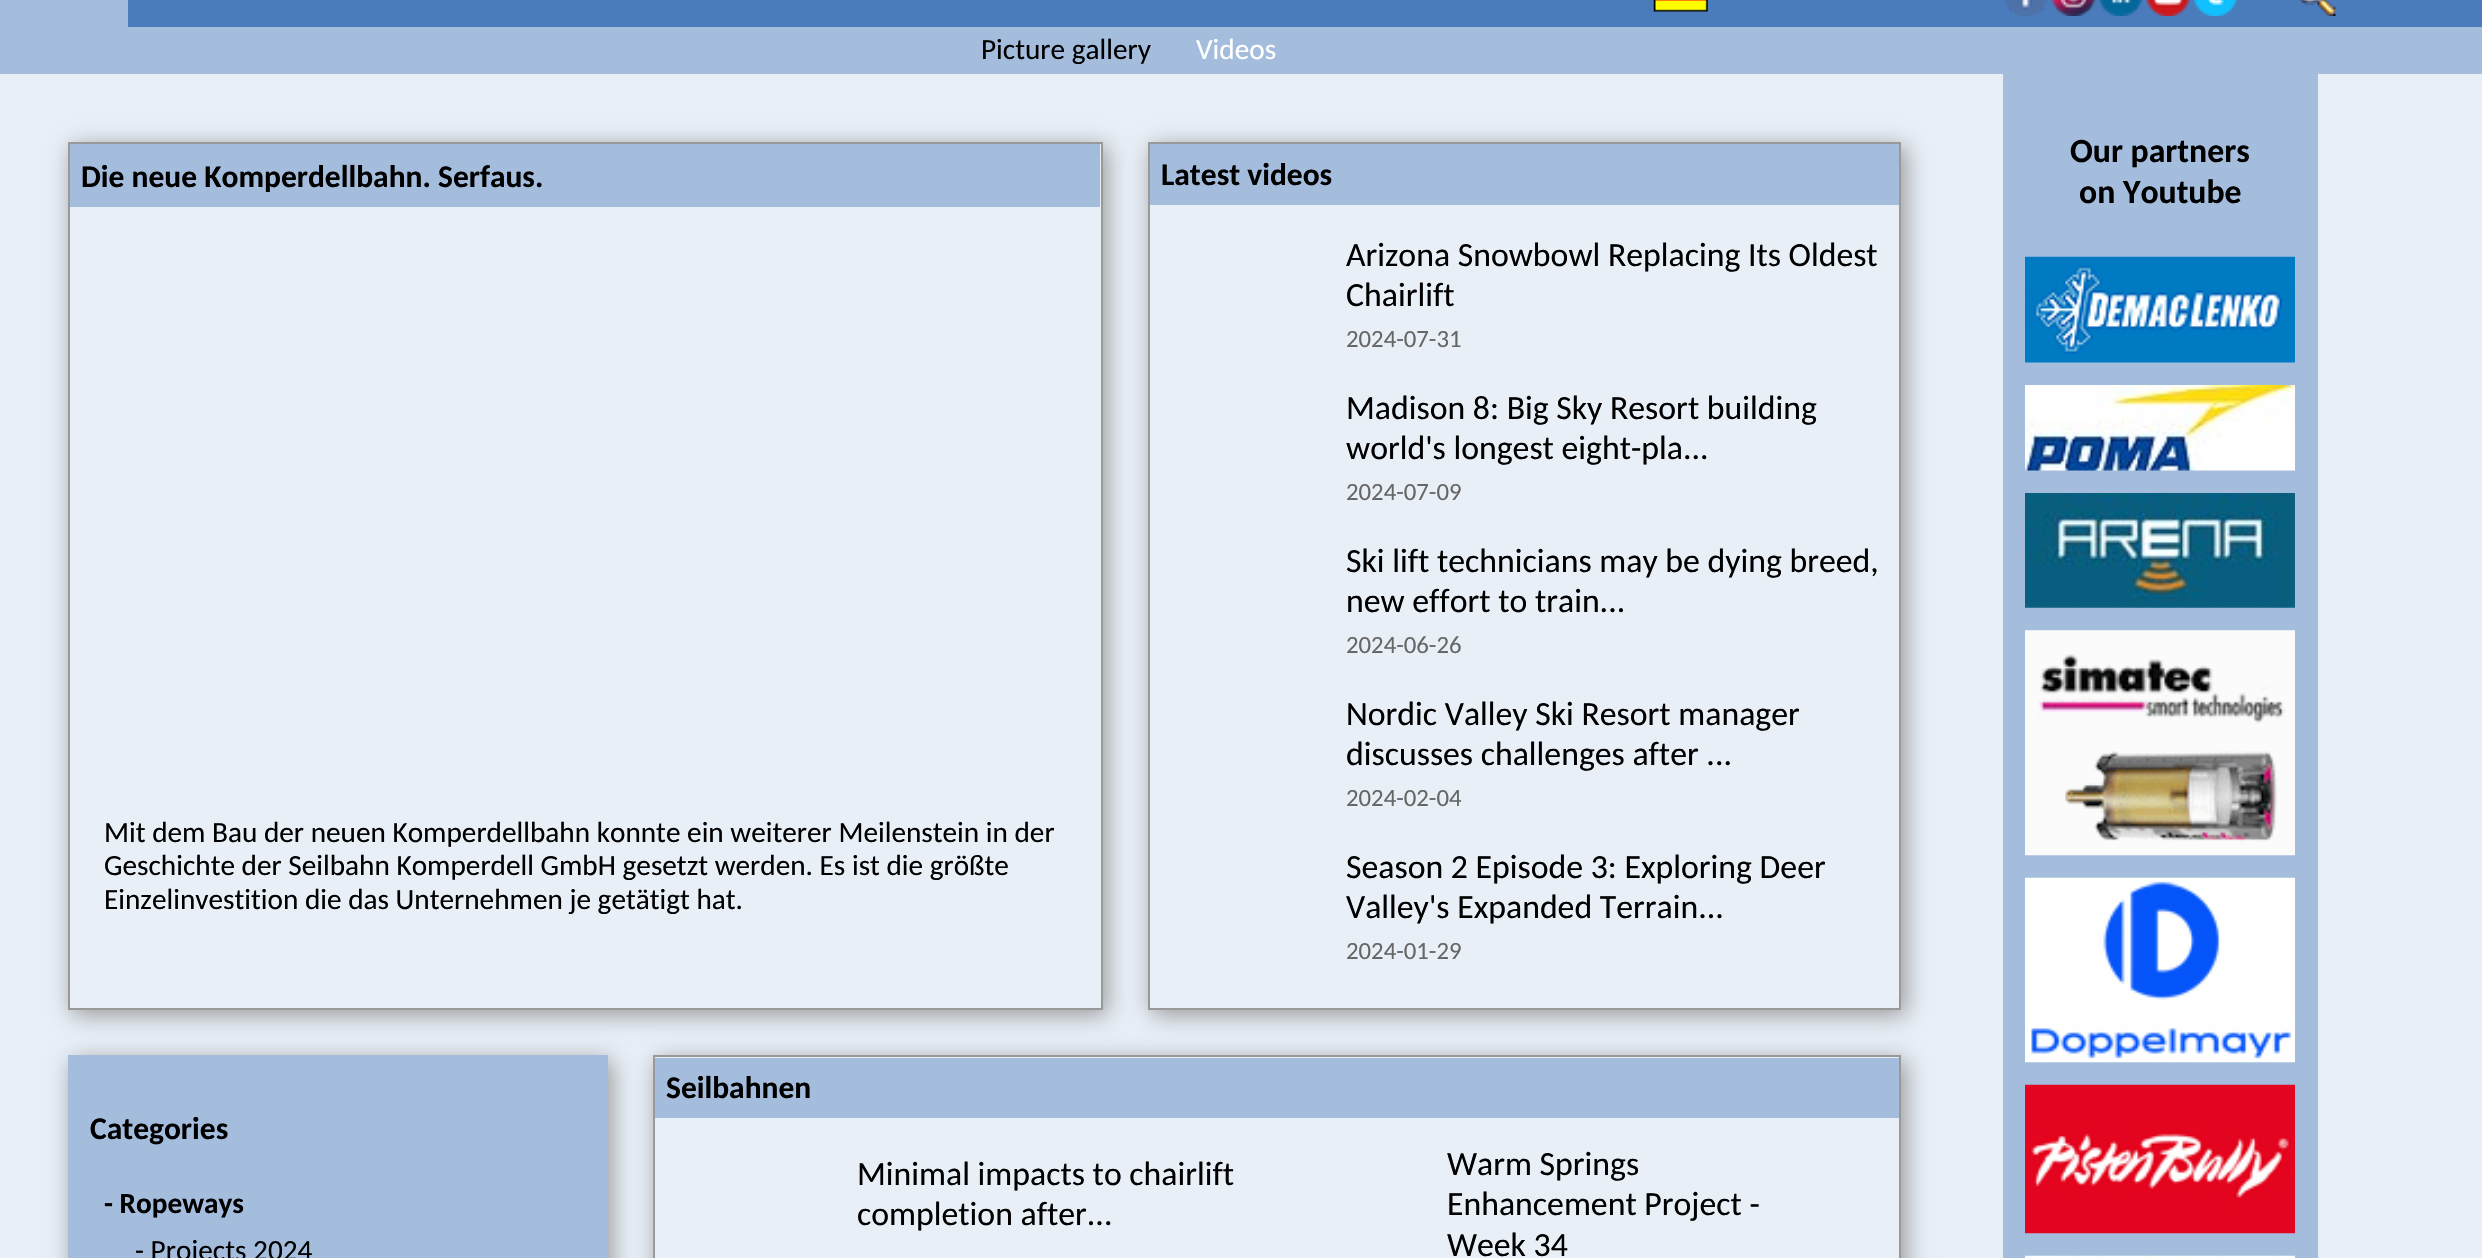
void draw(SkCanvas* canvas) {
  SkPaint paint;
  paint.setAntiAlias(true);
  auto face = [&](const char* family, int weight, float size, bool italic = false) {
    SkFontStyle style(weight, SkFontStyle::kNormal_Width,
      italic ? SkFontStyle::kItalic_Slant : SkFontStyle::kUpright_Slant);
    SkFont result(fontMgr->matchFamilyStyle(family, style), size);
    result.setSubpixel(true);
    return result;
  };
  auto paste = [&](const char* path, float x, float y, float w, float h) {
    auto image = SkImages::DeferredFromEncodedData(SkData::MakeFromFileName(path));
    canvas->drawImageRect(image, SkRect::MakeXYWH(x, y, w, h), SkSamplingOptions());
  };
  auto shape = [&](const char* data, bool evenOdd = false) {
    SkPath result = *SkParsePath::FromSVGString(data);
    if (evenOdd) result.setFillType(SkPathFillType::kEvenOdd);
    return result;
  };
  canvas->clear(0xffe8eff7);
  paint.setColor(0xff4a7cbc);
  canvas->drawRect(SkRect::MakeXYWH(128, 0, 2354, 27), paint);
  paint.setColor(0xffa4bddd);
  canvas->drawRect(SkRect::MakeXYWH(0, 0, 128, 27), paint);
  paste("img/1.png", 1653, 0, 55, 12);
  paste("img/2.png", 2004, 0, 233, 16);
  paste("img/3.png", 2299, 0, 37, 16);
  canvas->drawRect(SkRect::MakeXYWH(0, 27, 2482, 47), paint);
  canvas->save();
  canvas->clipPath(shape("M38 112H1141V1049H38ZM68 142H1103V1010H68Z", true), true);
  paint.setColor(0xff999999);
  paint.setMaskFilter(SkMaskFilter::MakeBlur(kNormal_SkBlurStyle, 11));
  canvas->drawRect(SkRect::MakeXYWH(72, 146, 1035, 869), paint);
  paint.setMaskFilter(nullptr);
  canvas->restore();
  paint.setStroke(true);
  paint.setStrokeWidth(2);
  canvas->drawRect(SkRect::MakeXYWH(69, 143, 1033, 866), paint);
  paint.setStroke(false);
  paint.setColor(0xffa4bddd);
  canvas->drawRect(SkRect::MakeXYWH(70, 144, 1030, 63), paint);
  canvas->save();
  canvas->clipPath(shape("M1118 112H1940V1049H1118ZM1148 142H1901V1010H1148Z", true), true);
  paint.setColor(0xff999999);
  paint.setMaskFilter(SkMaskFilter::MakeBlur(kNormal_SkBlurStyle, 11));
  canvas->drawRect(SkRect::MakeXYWH(1152, 146, 754, 869), paint);
  paint.setMaskFilter(nullptr);
  canvas->restore();
  paint.setStroke(true);
  canvas->drawRect(SkRect::MakeXYWH(1149, 143, 751, 866), paint);
  paint.setStroke(false);
  paint.setColor(0xffa4bddd);
  canvas->drawRect(SkRect::MakeXYWH(1150, 144, 749, 61), paint);
  paint.setColor(0xff999999);
  paint.setMaskFilter(SkMaskFilter::MakeBlur(kNormal_SkBlurStyle, 11));
  canvas->drawRect(SkRect::MakeXYWH(72, 1060, 540, 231), paint);
  paint.setMaskFilter(nullptr);
  paint.setColor(0xffa4bddd);
  canvas->drawRect(SkRect::MakeXYWH(68, 1055, 540, 203), paint);
  canvas->save();
  canvas->clipPath(shape("M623 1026H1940V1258H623ZM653 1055H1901V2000H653Z", true), true);
  paint.setColor(0xff999999);
  paint.setMaskFilter(SkMaskFilter::MakeBlur(kNormal_SkBlurStyle, 11));
  canvas->drawRect(SkRect::MakeXYWH(657, 1060, 1249, 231), paint);
  paint.setMaskFilter(nullptr);
  canvas->restore();
  paint.setStroke(true);
  canvas->drawRect(SkRect::MakeXYWH(654, 1056, 1246, 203), paint);
  paint.setStroke(false);
  paint.setColor(0xffa4bddd);
  canvas->drawRect(SkRect::MakeXYWH(655, 1058, 1244, 60), paint);
  canvas->drawRect(SkRect::MakeXYWH(2003, 74, 315, 1184), paint);
  paste("img/4.png", 2025, 256, 270, 107);
  paste("img/5.png", 2025, 385, 270, 86);
  paste("img/6.png", 2025, 493, 270, 115);
  paste("img/7.png", 2025, 630, 270, 226);
  paste("img/8.png", 2025, 877, 270, 186);
  paste("img/9.png", 2025, 1084, 270, 150);
  paste("img/10.png", 2025, 1255, 270, 3);
  auto f0 = face("Carlito", 400, 29.25f);
  paint.setColor(0xff000000);
  canvas->drawString("Picture gallery", 981, 59, f0, paint);
  paint.setColor(0xffffffff);
  canvas->drawString("Videos", 1196, 59, f0, paint);
  auto f1 = face("Carlito", 700, 31.5f);
  paint.setColor(0xff000000);
  canvas->drawString("Die neue Komperdellbahn. Serfaus.", 81, 187, f1, paint);
  {
    const struct { const char* s; float x, y; } items[] = {
      {"Mit dem Bau der neuen Komperdellbahn konnte ein weiterer Meilenstein in der", 104, 842},
      {"Geschichte der Seilbahn Komperdell GmbH gesetzt werden. Es ist die größte", 104, 875},
      {"Einzelinvestition die das Unternehmen je getätigt hat.", 104, 909},
    };
    for (auto [s, x, y] : items) {
      canvas->drawString(s, x, y, f0, paint);
    }
  }
  canvas->drawString("Latest videos", 1161, 185, f1, paint);
  auto f2 = face("Carlito", 400, 33.75f);
  canvas->drawString("Arizona Snowbowl Replacing Its Oldest", 1346, 266, f2, paint);
  canvas->drawString("Chairlift", 1346, 306, f2, paint);
  auto f3 = face("Carlito", 400, 24.75f);
  paint.setColor(0xff666666);
  canvas->drawString("2024-07-31", 1346, 347, f3, paint);
  paint.setColor(0xff000000);
  canvas->drawString("Madison 8: Big Sky Resort building", 1346, 419, f2, paint);
  canvas->drawString("world's longest eight-pla...", 1346, 459, f2, paint);
  paint.setColor(0xff666666);
  canvas->drawString("2024-07-09", 1346, 500, f3, paint);
  paint.setColor(0xff000000);
  canvas->drawString("Ski lift technicians may be dying breed,", 1346, 572, f2, paint);
  canvas->drawString("new effort to train...", 1346, 612, f2, paint);
  paint.setColor(0xff666666);
  canvas->drawString("2024-06-26", 1346, 653, f3, paint);
  paint.setColor(0xff000000);
  canvas->drawString("Nordic Valley Ski Resort manager", 1346, 725, f2, paint);
  canvas->drawString("discusses challenges after ...", 1346, 765, f2, paint);
  paint.setColor(0xff666666);
  canvas->drawString("2024-02-04", 1346, 806, f3, paint);
  paint.setColor(0xff000000);
  canvas->drawString("Season 2 Episode 3: Exploring Deer", 1346, 878, f2, paint);
  canvas->drawString("Valley's Expanded Terrain...", 1346, 918, f2, paint);
  paint.setColor(0xff666666);
  canvas->drawString("2024-01-29", 1346, 959, f3, paint);
  paint.setColor(0xff000000);
  canvas->drawString("Categories", 90, 1139, f1, paint);
  auto f4 = face("Carlito", 700, 29.25f);
  canvas->drawString("- Ropeways", 104, 1213, f4, paint);
  canvas->drawString("- Projects 2024", 135, 1260, f0, paint);
  canvas->drawString("Seilbahnen", 666, 1098, f1, paint);
  {
    const struct { const char* s; float x, y; } items[] = {
      {"Minimal impacts to chairlift", 857, 1185},
      {"completion after...", 857, 1225},
      {"Warm Springs", 1447, 1175},
      {"Enhancement Project -", 1447, 1215},
      {"Week 34", 1447, 1256},
    };
    for (auto [s, x, y] : items) {
      canvas->drawString(s, x, y, f2, paint);
    }
  }
  auto f5 = face("Carlito", 700, 33.75f);
  canvas->drawString("Our partners", 2070, 162, f5, paint);
  canvas->drawString("on Youtube", 2079, 203, f5, paint);
}
